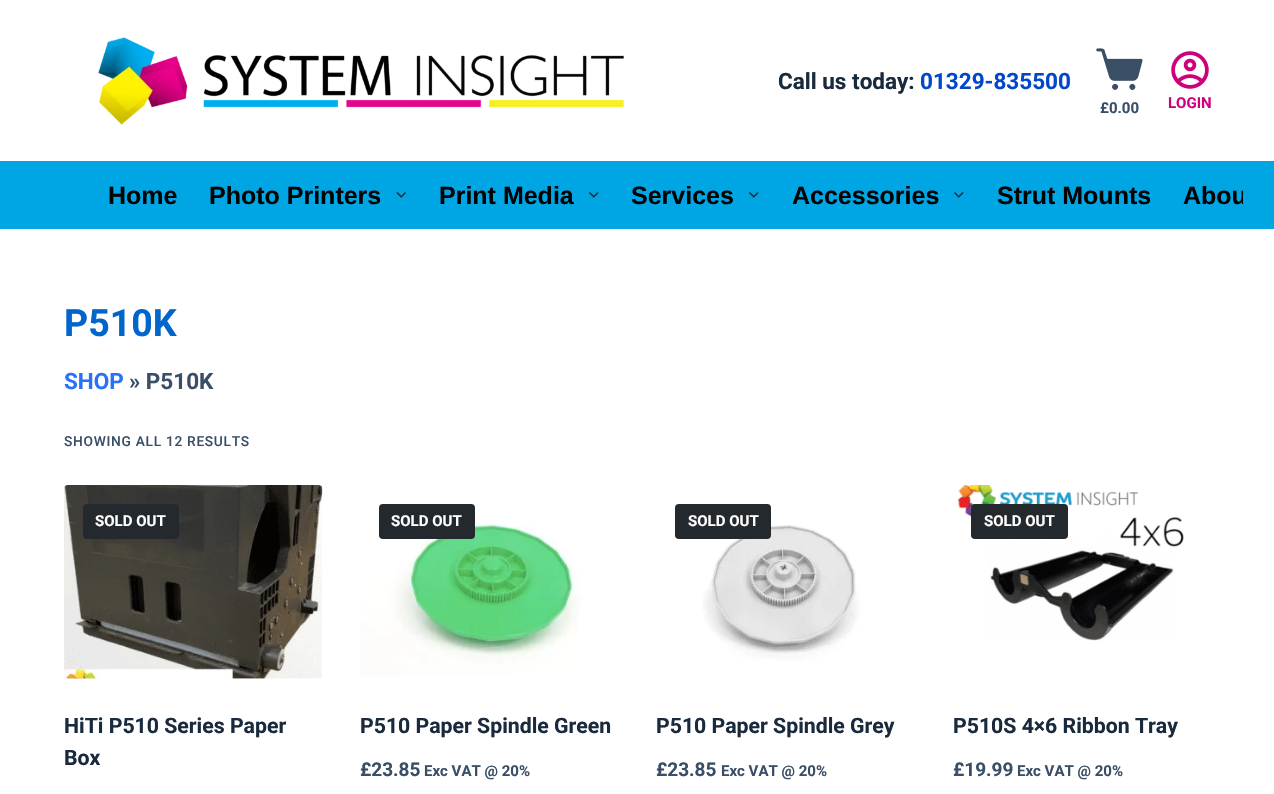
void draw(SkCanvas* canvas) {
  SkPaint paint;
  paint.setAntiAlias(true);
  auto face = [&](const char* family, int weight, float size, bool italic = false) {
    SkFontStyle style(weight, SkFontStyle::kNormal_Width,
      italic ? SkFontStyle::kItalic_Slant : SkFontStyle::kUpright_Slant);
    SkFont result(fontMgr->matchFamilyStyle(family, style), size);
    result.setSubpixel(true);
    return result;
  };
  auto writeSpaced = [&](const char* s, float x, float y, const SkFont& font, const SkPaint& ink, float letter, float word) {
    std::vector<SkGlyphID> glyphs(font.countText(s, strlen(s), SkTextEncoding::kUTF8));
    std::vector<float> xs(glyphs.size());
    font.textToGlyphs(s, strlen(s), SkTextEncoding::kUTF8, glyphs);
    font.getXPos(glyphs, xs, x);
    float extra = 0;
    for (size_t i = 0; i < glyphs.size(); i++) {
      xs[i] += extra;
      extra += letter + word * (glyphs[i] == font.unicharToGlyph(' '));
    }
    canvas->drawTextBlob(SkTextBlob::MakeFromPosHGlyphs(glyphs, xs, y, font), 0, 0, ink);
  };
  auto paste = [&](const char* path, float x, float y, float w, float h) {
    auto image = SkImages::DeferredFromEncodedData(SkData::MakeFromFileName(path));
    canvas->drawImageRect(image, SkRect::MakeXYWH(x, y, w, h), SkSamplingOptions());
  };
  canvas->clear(0xffffffff);
  paste("img/1.png", 98, 37, 526, 88);
  paste("img/2.png", 1096, 48, 47, 42);
  paste("img/3.png", 1171, 51, 38, 38);
  paint.setColor(0xff00a5e4);
  canvas->drawRect(SkRect::MakeXYWH(0, 161, 1274, 68), paint);
  paste("img/4.png", 396, 192, 10, 6);
  paste("img/5.png", 589, 192, 10, 6);
  paste("img/5.png", 749, 192, 10, 6);
  paste("img/5.png", 954, 192, 10, 6);
  paste("img/6.png", 64, 485, 259, 194);
  paint.setColor(0xff24292e);
  canvas->drawRoundRect(SkRect::MakeXYWH(83, 504, 96, 35), 4, 4, paint);
  paste("img/7.png", 360, 523, 221, 153);
  canvas->drawRoundRect(SkRect::MakeXYWH(379, 504, 96, 35), 4, 4, paint);
  paste("img/8.png", 702, 525, 158, 136);
  canvas->drawRoundRect(SkRect::MakeXYWH(675, 504, 96, 35), 4, 4, paint);
  paste("img/9.png", 957, 485, 227, 156);
  canvas->drawRoundRect(SkRect::MakeXYWH(971, 504, 97, 35), 4, 4, paint);
  auto f0 = face("Roboto", 700, 22.5f);
  paint.setColor(0xff192a3d);
  canvas->drawString("Call us today:", 778, 89, f0, paint);
  paint.setColor(0xff0047ca);
  canvas->drawString("01329-835500", 920, 89, f0, paint);
  auto f1 = face("Roboto", 700, 15);
  paint.setColor(0xff3a4f66);
  canvas->drawString("£0.00", 1100, 113, f1, paint);
  paint.setColor(0xffce007b);
  canvas->drawString("LOGIN", 1168, 108, f1, paint);
  auto f2 = face("Liberation Sans", 700, 25);
  paint.setColor(0xff020202);
  {
    const struct { const char* s; float x, y; } items[] = {
      {"Home", 108, 204},
      {"Photo Printers", 209, 204},
      {"Print Media", 439, 204},
      {"Services", 631, 204},
      {"Accessories", 792, 204},
      {"Strut Mounts", 997, 204},
    };
    for (auto [s, x, y] : items) {
      canvas->drawString(s, x, y, f2, paint);
    }
  }
  canvas->save();
  canvas->clipRect(SkRect::MakeXYWH(108, 161, 1135, 68));
  canvas->drawString("Abou", 1183, 204, f2, paint);
  canvas->restore();
  auto f3 = face("Roboto", 700, 37.5f);
  paint.setColor(0xff0066cc);
  canvas->drawString("P510K", 64, 336, f3, paint);
  paint.setColor(0xff2872fa);
  canvas->drawString("SHOP", 64, 389, f0, paint);
  paint.setColor(0xff3a4f66);
  canvas->drawString("» P510K", 129, 389, f0, paint);
  auto f4 = face("Roboto", 500, 13.75f);
  writeSpaced("SHOWING ALL 12 RESULTS", 64, 446, f4, paint, 0.7f, 0);
  paint.setColor(0xffffffff);
  canvas->drawString("SOLD OUT", 95, 526, f1, paint);
  auto f5 = face("Roboto", 700, 21.25f);
  paint.setColor(0xff192a3d);
  canvas->drawString("HiTi P510 Series Paper", 64, 733, f5, paint);
  canvas->drawString("Box", 64, 765, f5, paint);
  paint.setColor(0xffffffff);
  canvas->drawString("SOLD OUT", 391, 526, f1, paint);
  paint.setColor(0xff192a3d);
  canvas->drawString("P510 Paper Spindle Green", 360, 733, f5, paint);
  auto f6 = face("Roboto", 700, 19);
  paint.setColor(0xff3a4f66);
  canvas->drawString("£23.85", 360, 776, f6, paint);
  canvas->drawString("Exc VAT @ 20%", 424, 776, f1, paint);
  paint.setColor(0xffffffff);
  canvas->drawString("SOLD OUT", 688, 526, f1, paint);
  paint.setColor(0xff192a3d);
  canvas->drawString("P510 Paper Spindle Grey", 656, 733, f5, paint);
  paint.setColor(0xff3a4f66);
  canvas->drawString("£23.85", 656, 776, f6, paint);
  canvas->drawString("Exc VAT @ 20%", 721, 776, f1, paint);
  paint.setColor(0xffffffff);
  canvas->drawString("SOLD OUT", 984, 526, f1, paint);
  paint.setColor(0xff192a3d);
  canvas->drawString("P510S 4×6 Ribbon Tray", 953, 733, f5, paint);
  paint.setColor(0xff3a4f66);
  canvas->drawString("£19.99", 953, 776, f6, paint);
  canvas->drawString("Exc VAT @ 20%", 1017, 776, f1, paint);
}
